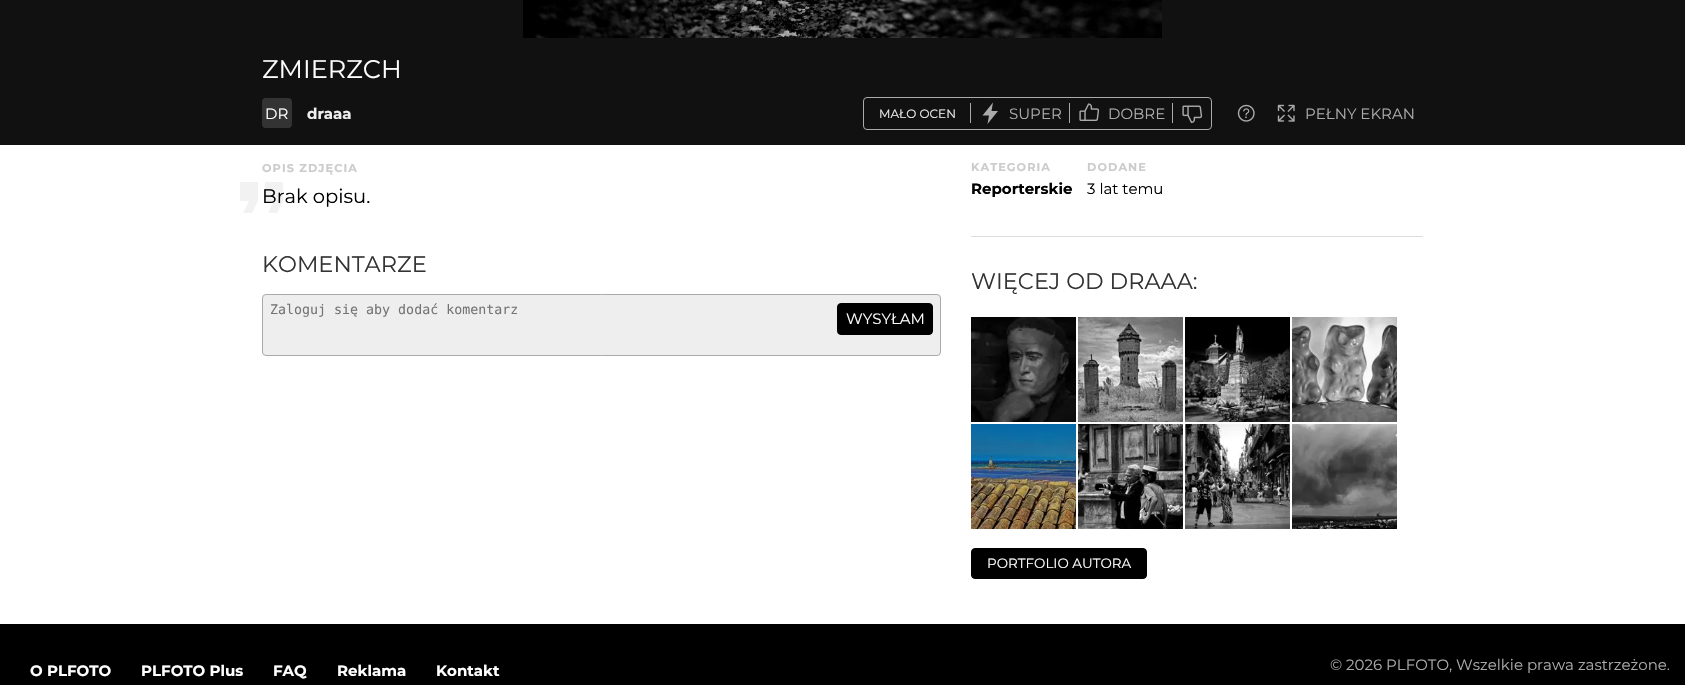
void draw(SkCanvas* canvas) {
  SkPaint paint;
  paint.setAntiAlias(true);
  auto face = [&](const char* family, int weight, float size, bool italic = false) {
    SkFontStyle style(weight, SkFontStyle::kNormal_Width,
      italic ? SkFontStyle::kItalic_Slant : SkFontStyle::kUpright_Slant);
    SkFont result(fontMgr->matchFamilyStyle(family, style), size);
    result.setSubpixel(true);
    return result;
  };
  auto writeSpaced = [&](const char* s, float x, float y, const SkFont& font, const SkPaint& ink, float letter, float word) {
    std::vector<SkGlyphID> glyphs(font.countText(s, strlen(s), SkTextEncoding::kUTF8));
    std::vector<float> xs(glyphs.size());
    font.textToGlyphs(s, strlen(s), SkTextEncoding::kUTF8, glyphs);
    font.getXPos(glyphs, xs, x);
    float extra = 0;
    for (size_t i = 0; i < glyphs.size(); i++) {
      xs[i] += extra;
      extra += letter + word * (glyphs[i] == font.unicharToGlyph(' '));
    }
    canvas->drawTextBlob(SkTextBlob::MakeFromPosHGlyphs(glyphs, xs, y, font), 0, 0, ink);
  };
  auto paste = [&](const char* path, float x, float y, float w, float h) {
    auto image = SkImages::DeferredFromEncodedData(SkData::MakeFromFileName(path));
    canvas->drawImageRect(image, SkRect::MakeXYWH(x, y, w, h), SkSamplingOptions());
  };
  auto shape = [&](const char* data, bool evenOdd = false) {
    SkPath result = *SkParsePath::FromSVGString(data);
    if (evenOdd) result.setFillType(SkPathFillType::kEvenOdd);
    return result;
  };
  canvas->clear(0xffffffff);
  paint.setColor(0xff111111);
  canvas->drawRect(SkRect::MakeXYWH(0, 0, 1685, 145), paint);
  paste("img/1.png", 523, 0, 639, 38);
  paint.setColor(0xff333333);
  canvas->drawRoundRect(SkRect::MakeXYWH(262, 98, 30, 30), 4, 4, paint);
  paint.setStroke(true);
  paint.setStrokeWidth(1);
  paint.setColor(0xffaaaaaa);
  canvas->drawRoundRect(SkRect::MakeXYWH(863.5f, 97.5f, 348, 32), 3.5f, 3.5f, paint);
  paint.setStroke(false);
  canvas->drawRect(SkRect::MakeXYWH(970, 103, 1, 20), paint);
  canvas->drawPath(shape("M998 111H991.5L993 102.5L982.5 115.5H989L987.5 124Z"), paint);
  canvas->drawRect(SkRect::MakeXYWH(1069, 103, 1, 20), paint);
  paste("img/2.png", 1079, 103, 21, 18);
  canvas->drawRect(SkRect::MakeXYWH(1172, 103, 1, 20), paint);
  paste("img/3.png", 1182, 105, 21, 19);
  paste("img/4.png", 1237, 104, 18, 18);
  paste("img/5.png", 1277, 104, 18, 18);
  paint.setColor(0x0d000000);
  canvas->drawPath(shape("M243 213H252L258 201V182H240V201H249ZM268 213H277L283 201V182H265V201H274Z"), paint);
  paint.setColor(0xffeeeeee);
  canvas->drawRoundRect(SkRect::MakeXYWH(262.5f, 294.5f, 678, 61), 3.5f, 3.5f, paint);
  paint.setStroke(true);
  paint.setColor(0xffaaaaaa);
  canvas->drawRoundRect(SkRect::MakeXYWH(262.5f, 294.5f, 678, 61), 3.5f, 3.5f, paint);
  paint.setStroke(false);
  paint.setColor(0xff000000);
  canvas->drawRoundRect(SkRect::MakeXYWH(837.5f, 303.5f, 95, 31), 3.5f, 3.5f, paint);
  paint.setStroke(true);
  canvas->drawRoundRect(SkRect::MakeXYWH(837.5f, 303.5f, 95, 31), 3.5f, 3.5f, paint);
  paint.setStroke(false);
  paint.setColor(0xffdddddd);
  canvas->drawRect(SkRect::MakeXYWH(971, 236, 452, 1), paint);
  paste("img/6.png", 971, 317, 105, 105);
  paste("img/7.png", 1078, 317, 105, 105);
  paste("img/8.png", 1185, 317, 105, 105);
  paste("img/9.png", 1292, 317, 105, 105);
  paste("img/10.png", 971, 424, 105, 105);
  paste("img/11.png", 1078, 424, 105, 105);
  paste("img/12.png", 1185, 424, 105, 105);
  paste("img/13.png", 1292, 424, 105, 105);
  paint.setColor(0xff000000);
  canvas->drawRoundRect(SkRect::MakeXYWH(971.5f, 548.5f, 175, 30), 3.5f, 3.5f, paint);
  paint.setStroke(true);
  canvas->drawRoundRect(SkRect::MakeXYWH(971.5f, 548.5f, 175, 30), 3.5f, 3.5f, paint);
  paint.setStroke(false);
  canvas->drawRect(SkRect::MakeXYWH(0, 624, 1685, 61), paint);
  auto f0 = face("Montserrat", 400, 25.5f);
  paint.setColor(0xffffffff);
  canvas->drawString("ZMIERZCH", 262, 78, f0, paint);
  auto f1 = face("Montserrat", 400, 15);
  canvas->drawString("DR", 265, 119, f1, paint);
  auto f2 = face("Montserrat", 700, 15);
  paint.setColor(0xffeeeeee);
  canvas->drawString("draaa", 307, 119, f2, paint);
  auto f3 = face("Montserrat", 400, 12);
  canvas->drawString("MAŁO OCEN", 879, 118, f3, paint);
  paint.setColor(0xffaaaaaa);
  {
    const struct { const char* s; float x, y; } items[] = {
      {"SUPER", 1009, 119},
      {"DOBRE", 1108, 119},
      {"PEŁNY EKRAN", 1305, 119},
    };
    for (auto [s, x, y] : items) {
      canvas->drawString(s, x, y, f1, paint);
    }
  }
  auto f4 = face("Montserrat", 700, 11.25f);
  paint.setColor(0xffcccccc);
  writeSpaced("OPIS ZDJĘCIA", 262, 172, f4, paint, 1.1f, 0);
  auto f5 = face("Montserrat", 400, 19.5f);
  paint.setColor(0xff000000);
  canvas->drawString("Brak opisu.", 262, 203, f5, paint);
  auto f6 = face("Montserrat", 400, 22.5f);
  paint.setColor(0xff333333);
  canvas->drawString("KOMENTARZE", 262, 272, f6, paint);
  auto f7 = face("DejaVu Sans Mono", 400, 13.3f);
  paint.setColor(0xff757575);
  canvas->drawString("Zaloguj się aby dodać komentarz", 270, 314, f7, paint);
  paint.setColor(0xffffffff);
  canvas->drawString("WYSYŁAM", 846, 324, f1, paint);
  paint.setColor(0xffcccccc);
  writeSpaced("KATEGORIA", 971, 171, f4, paint, 1.1f, 0);
  paint.setColor(0xff000000);
  canvas->drawString("Reporterskie", 971, 194, f2, paint);
  paint.setColor(0xffcccccc);
  writeSpaced("DODANE", 1087, 171, f4, paint, 1.1f, 0);
  paint.setColor(0xff000000);
  canvas->drawString("3 lat temu", 1087, 194, f1, paint);
  paint.setColor(0xff333333);
  canvas->drawString("WIĘCEJ OD DRAAA:", 971, 289, f6, paint);
  auto f8 = face("Montserrat", 400, 13.5f);
  paint.setColor(0xffffffff);
  canvas->drawString("PORTFOLIO AUTORA", 987, 568, f8, paint);
  {
    const struct { const char* s; float x, y; } items[] = {
      {"O PLFOTO", 30, 676},
      {"PLFOTO Plus", 141, 676},
      {"FAQ", 273, 676},
      {"Reklama", 337, 676},
      {"Kontakt", 436, 676},
    };
    for (auto [s, x, y] : items) {
      canvas->drawString(s, x, y, f2, paint);
    }
  }
  paint.setColor(0xffaaaaaa);
  canvas->drawString("© 2026 PLFOTO, Wszelkie prawa zastrzeżone.", 1330, 670, f1, paint);
}
